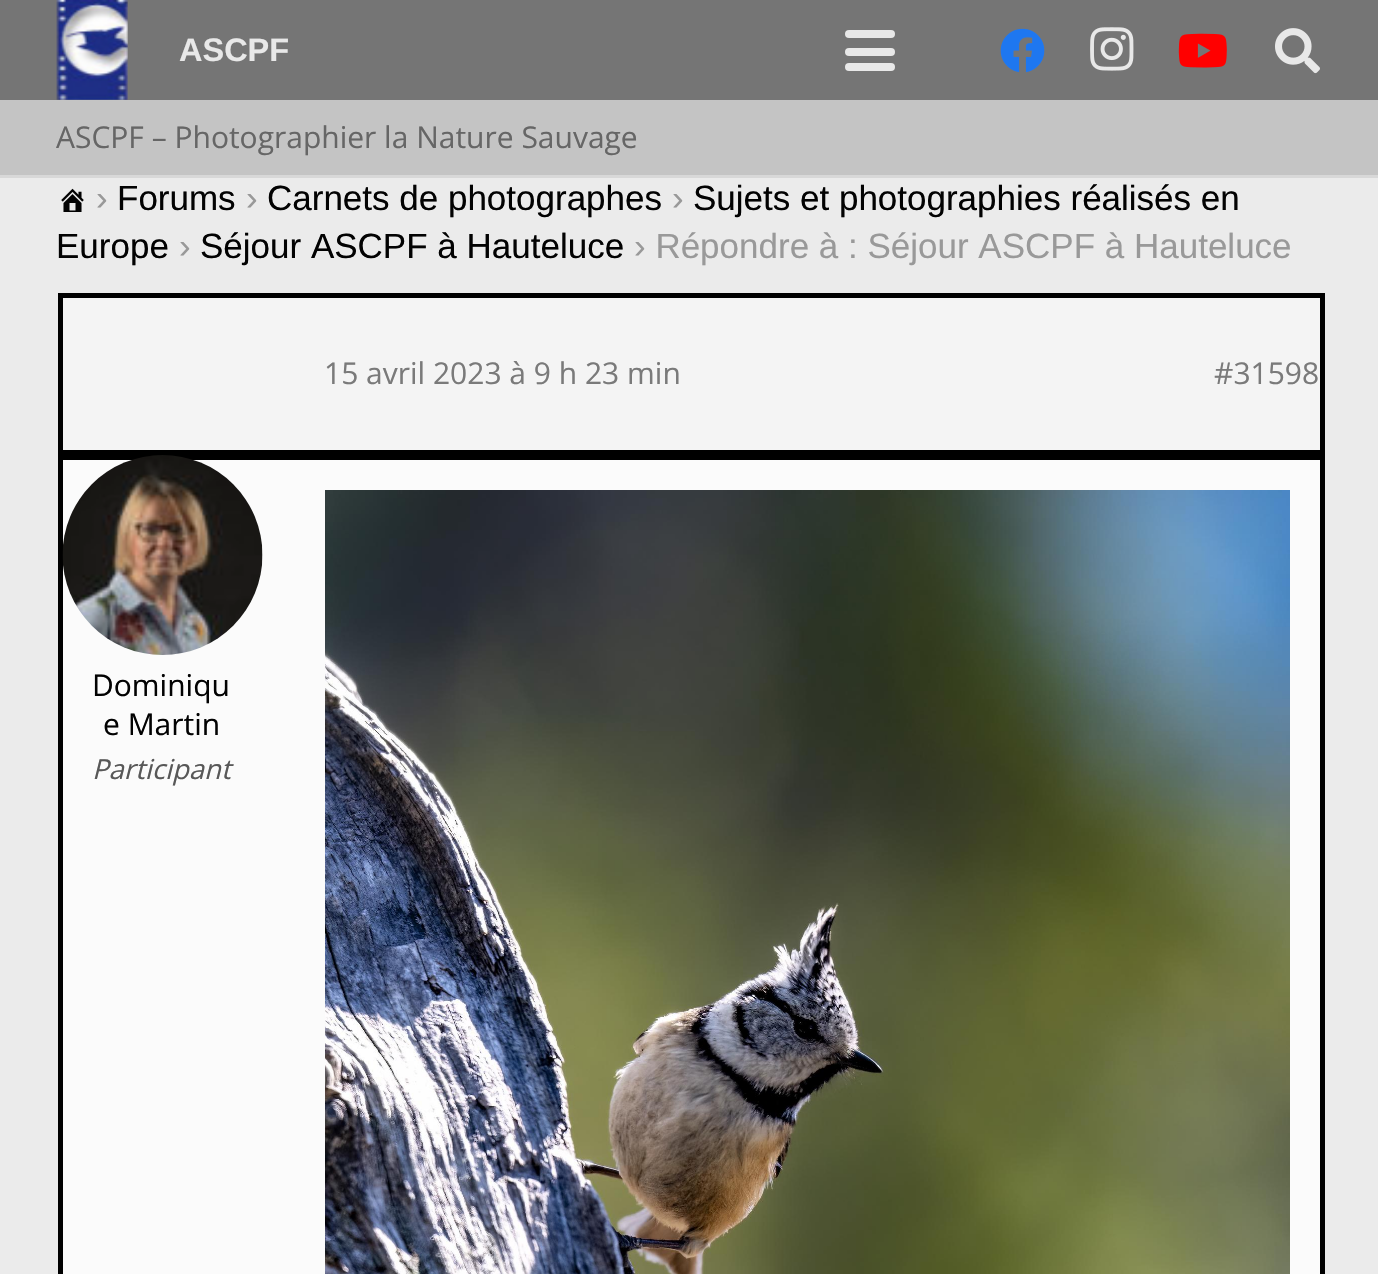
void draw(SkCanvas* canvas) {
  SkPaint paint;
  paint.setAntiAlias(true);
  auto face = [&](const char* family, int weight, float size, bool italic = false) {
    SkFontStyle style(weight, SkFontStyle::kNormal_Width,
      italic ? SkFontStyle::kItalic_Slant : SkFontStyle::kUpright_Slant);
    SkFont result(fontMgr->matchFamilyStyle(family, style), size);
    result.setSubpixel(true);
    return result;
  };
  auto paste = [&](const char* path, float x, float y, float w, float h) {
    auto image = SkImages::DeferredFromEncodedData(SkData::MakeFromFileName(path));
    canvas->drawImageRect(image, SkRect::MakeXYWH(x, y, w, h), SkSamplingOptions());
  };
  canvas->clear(0xffebebeb);
  paint.setColor(0xff757575);
  canvas->drawRect(SkRect::MakeXYWH(0, 0, 1378, 100), paint);
  paste("img/1.png", 56, 0, 72, 100);
  paint.setColor(0xffe8e8e8);
  canvas->drawRoundRect(SkRect::MakeXYWH(845, 48, 50, 8), 4, 4, paint);
  canvas->drawRoundRect(SkRect::MakeXYWH(845, 30, 50, 8), 4, 4, paint);
  canvas->drawRoundRect(SkRect::MakeXYWH(845, 63, 50, 8), 4, 4, paint);
  paste("img/2.png", 1000, 28, 45, 45);
  paste("img/3.png", 1090, 27, 44, 44);
  paste("img/4.png", 1178, 33, 49, 35);
  paste("img/5.png", 1275, 28, 45, 46);
  paint.setColor(0xffd8d8d8);
  canvas->drawRect(SkRect::MakeXYWH(0, 175, 1378, 3), paint);
  paint.setColor(0xffc4c4c4);
  canvas->drawRect(SkRect::MakeXYWH(0, 100, 1378, 75), paint);
  paste("img/6.png", 61, 188, 23, 24);
  paint.setColor(0xfff4f4f4);
  canvas->drawRect(SkRect::MakeXYWH(60.5f, 295.5f, 1262, 157), paint);
  paint.setStroke(true);
  paint.setStrokeWidth(5);
  paint.setColor(0xff000000);
  canvas->drawRect(SkRect::MakeXYWH(60.5f, 295.5f, 1262, 157), paint);
  paint.setStroke(false);
  paint.setColor(0xfffbfbfb);
  canvas->drawRect(SkRect::MakeXYWH(60.5f, 457.5f, 1262, 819), paint);
  paint.setStroke(true);
  paint.setColor(0xff000000);
  canvas->drawRect(SkRect::MakeXYWH(60.5f, 457.5f, 1262, 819), paint);
  paste("img/7.png", 62, 455, 201, 200);
  paste("img/8.png", 325, 490, 965, 784);
  auto f0 = face("Liberation Sans", 700, 32.5f);
  paint.setStroke(false);
  paint.setColor(0xffe8e8e8);
  canvas->drawString("ASCPF", 179, 61, f0, paint);
  auto f1 = face("Open Sans", 400, 30);
  paint.setColor(0xff666666);
  canvas->drawString("ASCPF – Photographier la Nature Sauvage", 56, 148, f1, paint);
  auto f2 = face("Liberation Sans", 400, 35);
  paint.setColor(0xff999999);
  canvas->drawString("›", 96, 210, f2, paint);
  paint.setColor(0xff020202);
  canvas->drawString("Forums", 117, 210, f2, paint);
  paint.setColor(0xff999999);
  canvas->drawString("›", 246, 210, f2, paint);
  paint.setColor(0xff020202);
  canvas->drawString("Carnets de photographes", 267, 210, f2, paint);
  paint.setColor(0xff999999);
  canvas->drawString("›", 672, 210, f2, paint);
  paint.setColor(0xff020202);
  canvas->drawString("Sujets et photographies réalisés en", 693, 210, f2, paint);
  canvas->drawString("Europe", 56, 258, f2, paint);
  paint.setColor(0xff999999);
  canvas->drawString("›", 179, 258, f2, paint);
  paint.setColor(0xff020202);
  canvas->drawString("Séjour ASCPF à Hauteluce", 200, 258, f2, paint);
  paint.setColor(0xff999999);
  canvas->drawString("› Répondre à : Séjour ASCPF à Hauteluce", 634, 258, f2, paint);
  paint.setColor(0xff7a7a7a);
  canvas->drawString("15 avril 2023 à 9 h 23 min", 324, 384, f1, paint);
  canvas->drawString("#31598", 1214, 384, f1, paint);
  paint.setColor(0xff020202);
  canvas->drawString("Dominiqu", 92, 696, f1, paint);
  canvas->drawString("e Martin", 103, 735, f1, paint);
  auto f3 = face("Open Sans", 400, 27.5f, true);
  paint.setColor(0xff585858);
  canvas->drawString("Participant", 92, 779, f3, paint);
}
